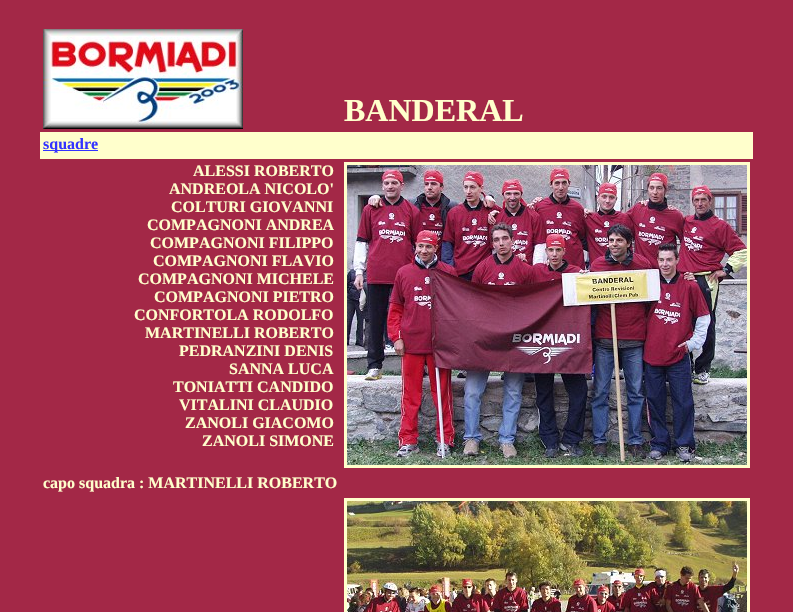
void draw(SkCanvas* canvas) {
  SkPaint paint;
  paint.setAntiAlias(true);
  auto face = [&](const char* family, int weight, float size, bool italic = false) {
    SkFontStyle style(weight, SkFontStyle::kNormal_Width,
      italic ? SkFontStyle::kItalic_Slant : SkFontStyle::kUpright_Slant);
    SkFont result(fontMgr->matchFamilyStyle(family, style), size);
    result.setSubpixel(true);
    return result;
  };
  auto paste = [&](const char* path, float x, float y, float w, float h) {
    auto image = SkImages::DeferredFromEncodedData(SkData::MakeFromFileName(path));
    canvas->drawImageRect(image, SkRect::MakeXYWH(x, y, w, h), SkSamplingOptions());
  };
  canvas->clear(0xffa32847);
  paste("img/1.png", 43, 29, 200, 100);
  paint.setColor(0xffffffcc);
  canvas->drawRect(SkRect::MakeXYWH(40, 132, 713, 27), paint);
  paint.setColor(0xff3333ff);
  canvas->drawRect(SkRect::MakeXYWH(43, 150, 55, 1), paint);
  paint.setStroke(true);
  paint.setStrokeWidth(3);
  paint.setColor(0xffffffcc);
  canvas->drawRect(SkRect::MakeXYWH(345.5f, 163.5f, 403, 303), paint);
  paste("img/2.png", 347, 165, 400, 300);
  canvas->drawRect(SkRect::MakeXYWH(345.5f, 499.5f, 403, 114), paint);
  paste("img/3.png", 347, 501, 400, 111);
  auto f0 = face("Liberation Serif", 700, 32);
  paint.setStroke(false);
  canvas->drawString("BANDERAL", 344, 121, f0, paint);
  auto f1 = face("Liberation Serif", 700, 16);
  paint.setColor(0xff3333ff);
  canvas->drawString("squadre", 43, 149, f1, paint);
  paint.setColor(0xffffffcc);
  {
    const struct { const char* s; float x, y; } items[] = {
      {"ALESSI ROBERTO", 193, 176},
      {"ANDREOLA NICOLO'", 169, 194},
      {"COLTURI GIOVANNI", 171, 212},
      {"COMPAGNONI ANDREA", 147, 230},
      {"COMPAGNONI FILIPPO", 150, 248},
      {"COMPAGNONI FLAVIO", 153, 266},
      {"COMPAGNONI MICHELE", 138, 284},
      {"COMPAGNONI PIETRO", 154, 302},
      {"CONFORTOLA RODOLFO", 134, 320},
      {"MARTINELLI ROBERTO", 145, 338},
      {"PEDRANZINI DENIS", 179, 356},
      {"SANNA LUCA", 229, 374},
      {"TONIATTI CANDIDO", 173, 392},
      {"VITALINI CLAUDIO", 179, 410},
      {"ZANOLI GIACOMO", 185, 428},
      {"ZANOLI SIMONE", 202, 446},
      {"capo squadra : MARTINELLI ROBERTO", 43, 488},
    };
    for (auto [s, x, y] : items) {
      canvas->drawString(s, x, y, f1, paint);
    }
  }
}
